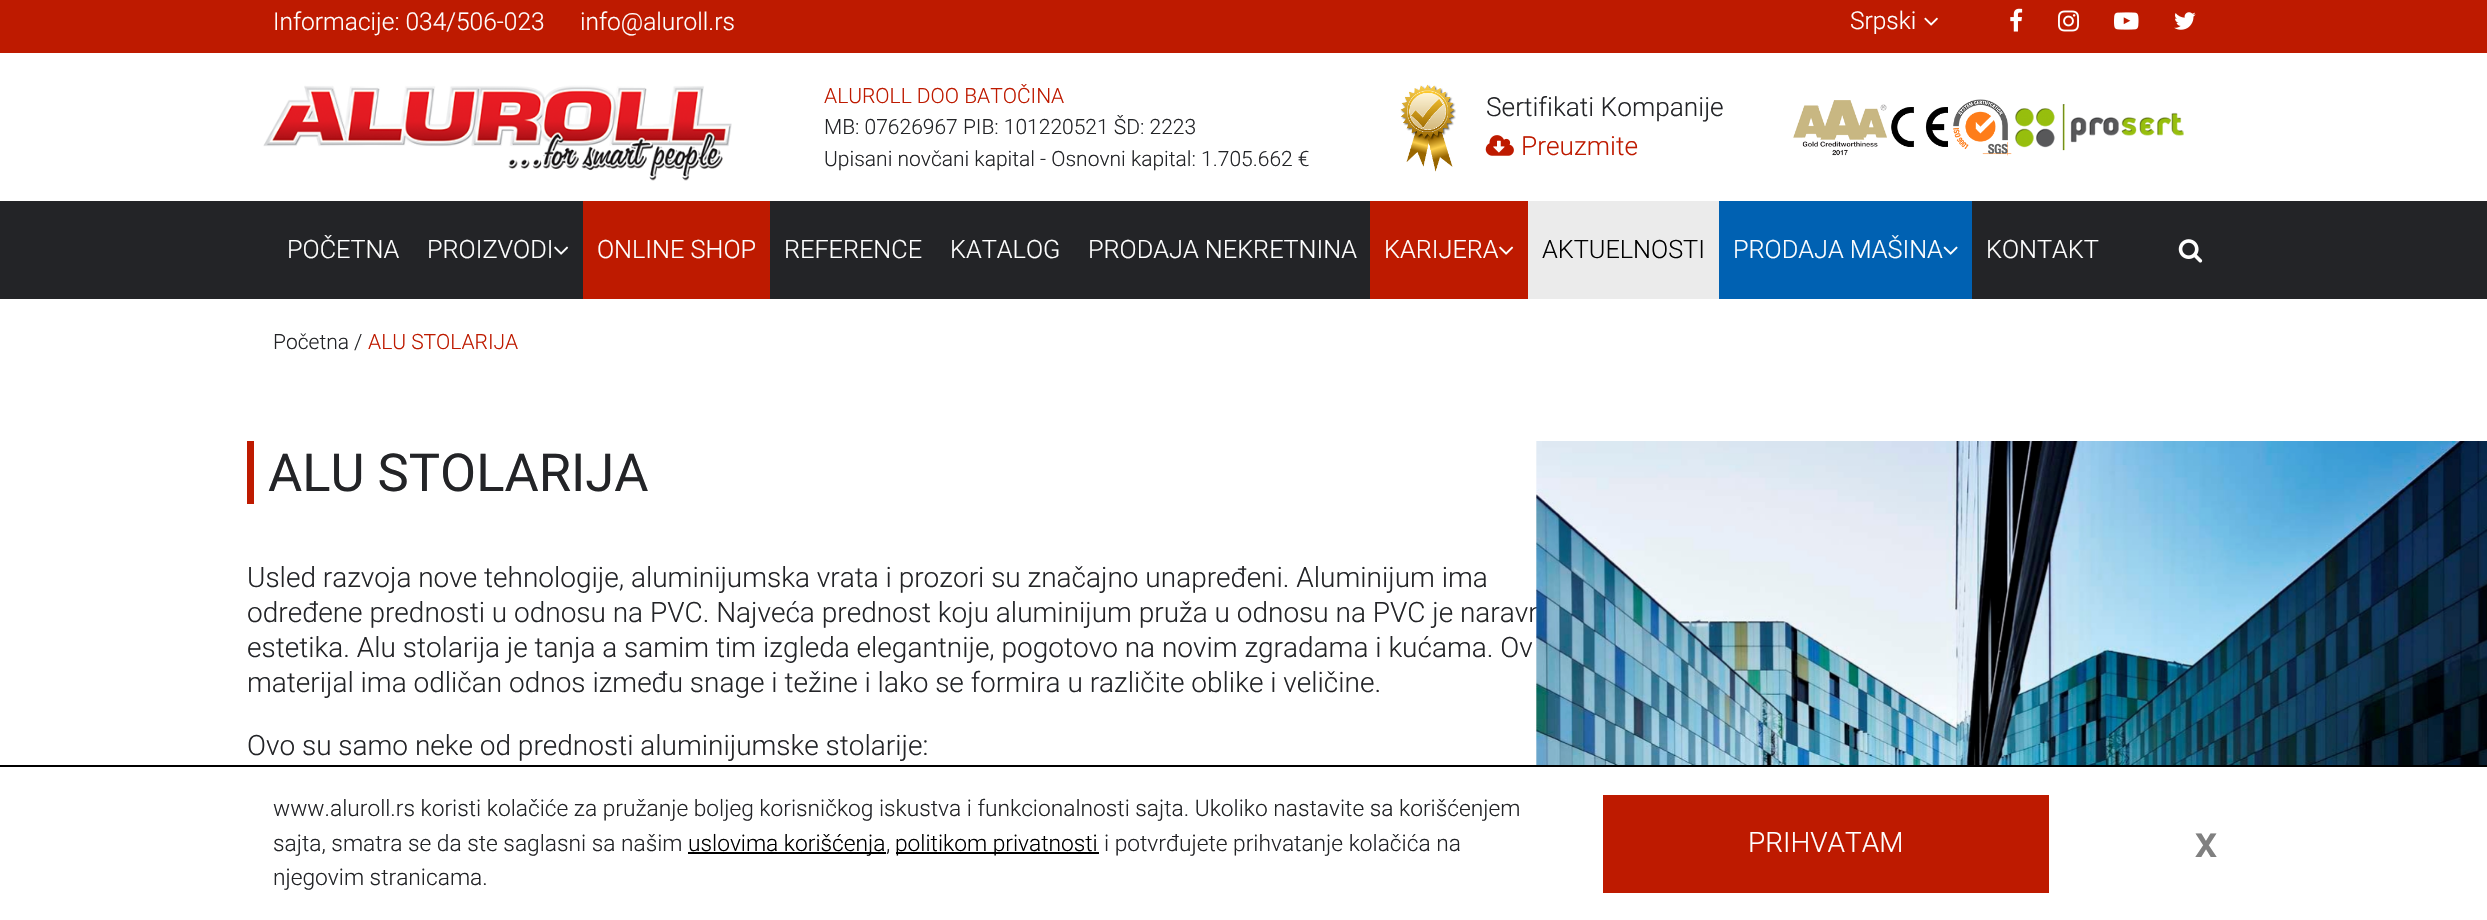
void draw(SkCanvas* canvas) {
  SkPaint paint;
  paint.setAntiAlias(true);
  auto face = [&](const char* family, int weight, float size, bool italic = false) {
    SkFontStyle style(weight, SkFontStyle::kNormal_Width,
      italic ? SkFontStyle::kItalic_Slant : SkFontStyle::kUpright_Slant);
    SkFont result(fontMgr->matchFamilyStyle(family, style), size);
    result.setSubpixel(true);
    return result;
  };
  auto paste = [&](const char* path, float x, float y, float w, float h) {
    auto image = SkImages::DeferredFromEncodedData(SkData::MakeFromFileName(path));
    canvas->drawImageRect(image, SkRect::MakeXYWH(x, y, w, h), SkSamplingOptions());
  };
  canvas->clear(0xffffffff);
  paint.setColor(0xffbe1a00);
  canvas->drawRect(SkRect::MakeXYWH(0, 0, 2487, 53), paint);
  paste("img/1.png", 1924, 17, 14, 9);
  paste("img/2.png", 2010, 8, 13, 24);
  paste("img/3.png", 2058, 10, 21, 22);
  paste("img/4.png", 2114, 12, 25, 18);
  paste("img/5.png", 2174, 12, 22, 18);
  paste("img/6.png", 263, 85, 469, 96);
  paste("img/7.png", 1400, 84, 56, 88);
  paste("img/8.png", 1485, 135, 29, 21);
  paste("img/9.png", 1793, 99, 391, 57);
  paint.setColor(0xff232427);
  canvas->drawRect(SkRect::MakeXYWH(0, 201, 2487, 98), paint);
  paste("img/10.png", 554, 246, 15, 9);
  paint.setColor(0xffbe1a00);
  canvas->drawRect(SkRect::MakeXYWH(583, 201, 187, 98), paint);
  canvas->drawRect(SkRect::MakeXYWH(1370, 201, 158, 98), paint);
  paste("img/11.png", 1499, 246, 15, 9);
  paint.setColor(0xffebebeb);
  canvas->drawRect(SkRect::MakeXYWH(1528, 201, 191, 98), paint);
  paint.setColor(0xff0061b2);
  canvas->drawRect(SkRect::MakeXYWH(1719, 201, 253, 98), paint);
  paste("img/12.png", 1943, 246, 15, 9);
  paste("img/13.png", 2178, 239, 25, 24);
  {
    const struct { float x, y, w, h; SkColor color; } items[] = {
      {247, 441, 7, 63, 0xffbe1a00},
      {0, 765, 2487, 2, 0xff000000},
      {688, 852, 198, 2, 0xff000000},
      {896, 852, 203, 2, 0xff000000},
      {1603, 795, 446, 98, 0xffbe1a00},
    };
    for (auto [x, y, w, h, color] : items) {
      paint.setColor(color);
      canvas->drawRect(SkRect::MakeXYWH(x, y, w, h), paint);
    }
  }
  auto f0 = face("Roboto", 300, 24.5f);
  paint.setColor(0xffffffff);
  {
    const struct { const char* s; float x, y; } items[] = {
      {"Informacije: 034/506-023", 273, 30},
      {"info@aluroll.rs", 580, 30},
      {"Srpski", 1850, 29},
    };
    for (auto [s, x, y] : items) {
      canvas->drawString(s, x, y, f0, paint);
    }
  }
  auto f1 = face("Roboto", 300, 21);
  paint.setColor(0xffbe1a00);
  canvas->drawString("ALUROLL DOO BATOČINA", 824, 103, f1, paint);
  paint.setColor(0xff232427);
  canvas->drawString("MB: 07626967 PIB: 101220521 ŠD: 2223", 824, 134, f1, paint);
  canvas->drawString("Upisani novčani kapital - Osnovni kapital: 1.705.662 €", 824, 166, f1, paint);
  auto f2 = face("Roboto", 300, 26.25f);
  canvas->drawString("Sertifikati Kompanije", 1486, 116, f2, paint);
  paint.setColor(0xffbe1a00);
  canvas->drawString("Preuzmite", 1521, 155, f2, paint);
  auto f3 = face("Roboto", 300, 25.25f);
  paint.setColor(0xffffffff);
  {
    const struct { const char* s; float x, y; } items[] = {
      {"POČETNA", 287, 258},
      {"PROIZVODI", 427, 258},
      {"ONLINE SHOP", 597, 258},
      {"REFERENCE", 784, 258},
      {"KATALOG", 950, 258},
      {"PRODAJA NEKRETNINA", 1088, 258},
      {"KARIJERA", 1384, 258},
    };
    for (auto [s, x, y] : items) {
      canvas->drawString(s, x, y, f3, paint);
    }
  }
  paint.setColor(0xff000000);
  canvas->drawString("AKTUELNOSTI", 1542, 258, f3, paint);
  paint.setColor(0xffffffff);
  canvas->drawString("PRODAJA MAŠINA", 1733, 258, f3, paint);
  canvas->drawString("KONTAKT", 1986, 258, f3, paint);
  paint.setColor(0xff232427);
  canvas->drawString("Početna /", 273, 349, f1, paint);
  paint.setColor(0xffbe1a00);
  canvas->drawString("ALU STOLARIJA", 368, 349, f1, paint);
  auto f4 = face("Roboto", 400, 52.5f);
  paint.setColor(0xff232427);
  canvas->drawString("ALU STOLARIJA", 268, 491, f4, paint);
  auto f5 = face("Roboto", 300, 28);
  {
    const struct { const char* s; float x, y; } items[] = {
      {"Usled razvoja nove tehnologije, aluminijumska vrata i prozori su značajno unapređeni. Aluminijum ima", 247, 587},
      {"određene prednosti u odnosu na PVC. Najveća prednost koju aluminijum pruža u odnosu na PVC je naravn", 247, 622},
      {"estetika. Alu stolarija je tanja a samim tim izgleda elegantnije, pogotovo na novim zgradama i kućama. Ov", 247, 657},
      {"materijal ima odličan odnos između snage i težine i lako se formira u različite oblike i veličine.", 247, 692},
      {"Ovo su samo neke od prednosti aluminijumske stolarije:", 247, 755},
    };
    for (auto [s, x, y] : items) {
      canvas->drawString(s, x, y, f5, paint);
    }
  }
  paste("img/14.png", 1536, 441, 951, 324);
  auto f6 = face("Roboto", 300, 22.75f);
  canvas->drawString("www.aluroll.rs koristi kolačiće za pružanje boljeg korisničkog iskustva i funkcionalnosti sajta. Ukoliko nastavite sa korišćenjem", 273, 816, f6, paint);
  canvas->drawString("sajta, smatra se da ste saglasni sa našim", 273, 851, f6, paint);
  paint.setColor(0xff000000);
  canvas->drawString("uslovima korišćenja", 688, 851, f6, paint);
  paint.setColor(0xff232427);
  canvas->drawString(",", 886, 851, f6, paint);
  paint.setColor(0xff000000);
  canvas->drawString("politikom privatnosti", 895, 851, f6, paint);
  paint.setColor(0xff232427);
  canvas->drawString("i potvrđujete prihvatanje kolačića na", 1104, 851, f6, paint);
  canvas->drawString("njegovim stranicama.", 273, 885, f6, paint);
  paint.setColor(0xffffffff);
  canvas->drawString("PRIHVATAM", 1748, 852, f5, paint);
  auto f7 = face("Roboto", 700, 42);
  paint.setColor(0xff808080);
  canvas->drawString("x", 2195, 857, f7, paint);
}
